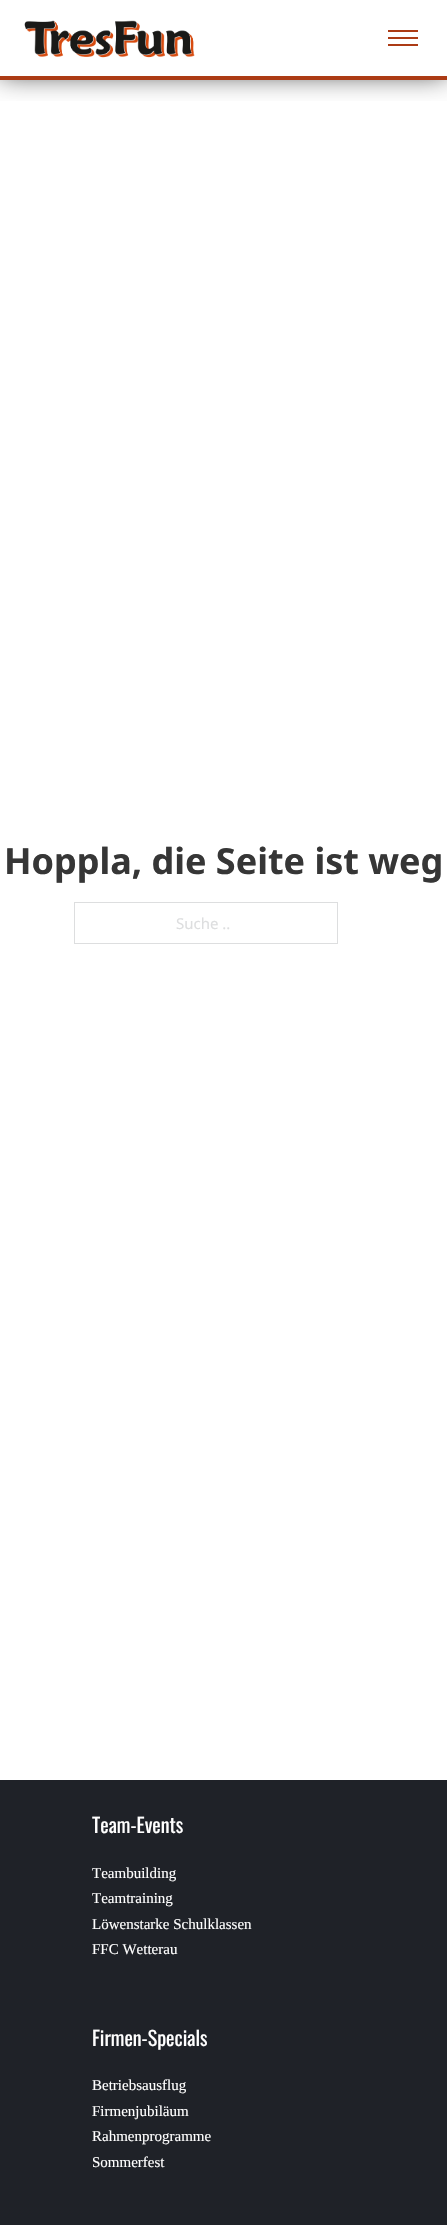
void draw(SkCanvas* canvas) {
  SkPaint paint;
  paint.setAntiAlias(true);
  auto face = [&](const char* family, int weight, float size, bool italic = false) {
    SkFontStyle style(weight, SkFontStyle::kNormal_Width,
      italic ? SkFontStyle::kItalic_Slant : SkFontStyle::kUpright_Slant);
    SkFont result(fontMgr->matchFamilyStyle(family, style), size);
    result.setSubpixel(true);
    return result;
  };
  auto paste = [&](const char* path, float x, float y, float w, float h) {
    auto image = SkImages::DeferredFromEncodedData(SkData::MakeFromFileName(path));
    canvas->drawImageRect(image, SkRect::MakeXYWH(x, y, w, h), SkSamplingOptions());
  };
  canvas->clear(0xffffffff);
  canvas->save();
  canvas->clipRect(SkRect::MakeXYWH(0, 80, 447, 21));
  paint.setColor(0xff424242);
  paint.setMaskFilter(SkMaskFilter::MakeBlur(kNormal_SkBlurStyle, 12.5f));
  canvas->drawRect(SkRect::MakeXYWH(0, -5, 447, 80), paint);
  paint.setMaskFilter(nullptr);
  canvas->restore();
  paint.setColor(0xffac3b15);
  canvas->drawRect(SkRect::MakeXYWH(0, 76, 447, 4), paint);
  paste("img/1.png", 24, 20, 171, 38);
  {
    const struct { float x, y, w, h; SkColor color; } items[] = {
      {388, 30, 30, 2, 0xffac3b15},
      {388, 37, 30, 2, 0xffac3b15},
      {388, 44, 30, 2, 0xffac3b15},
    };
    for (auto [x, y, w, h, color] : items) {
      paint.setColor(color);
      canvas->drawRect(SkRect::MakeXYWH(x, y, w, h), paint);
    }
  }
  paint.setStroke(true);
  paint.setStrokeWidth(1);
  paint.setColor(0xffdddedf);
  canvas->drawRect(SkRect::MakeXYWH(74.5f, 902.5f, 263, 41), paint);
  paint.setStroke(false);
  paint.setColor(0xff1f2228);
  canvas->drawRect(SkRect::MakeXYWH(0, 1780, 447, 445), paint);
  auto f0 = face("Noto Sans", 700, 36);
  paint.setColor(0xff363636);
  canvas->drawString("Hoppla, die Seite ist weg", 4, 874, f0, paint);
  auto f1 = face("Noto Sans", 400, 15);
  paint.setColor(0xffdddedf);
  canvas->drawString("Suche ..", 176, 929, f1, paint);
  auto f2 = face("Oswald", 400, 20);
  paint.setColor(0xffffffff);
  canvas->drawString("Team-Events", 92, 1833, f2, paint);
  auto f3 = face("Liberation Serif", 400, 15);
  {
    const struct { const char* s; float x, y; } items[] = {
      {"Teambuilding", 92, 1878},
      {"Teamtraining", 92, 1903},
      {"Löwenstarke Schulklassen", 92, 1929},
      {"FFC Wetterau", 92, 1954},
    };
    for (auto [s, x, y] : items) {
      canvas->drawString(s, x, y, f3, paint);
    }
  }
  canvas->drawString("Firmen-Specials", 92, 2046, f2, paint);
  {
    const struct { const char* s; float x, y; } items[] = {
      {"Betriebsausflug", 92, 2090},
      {"Firmenjubiläum", 92, 2116},
      {"Rahmenprogramme", 92, 2141},
      {"Sommerfest", 92, 2167},
    };
    for (auto [s, x, y] : items) {
      canvas->drawString(s, x, y, f3, paint);
    }
  }
}
